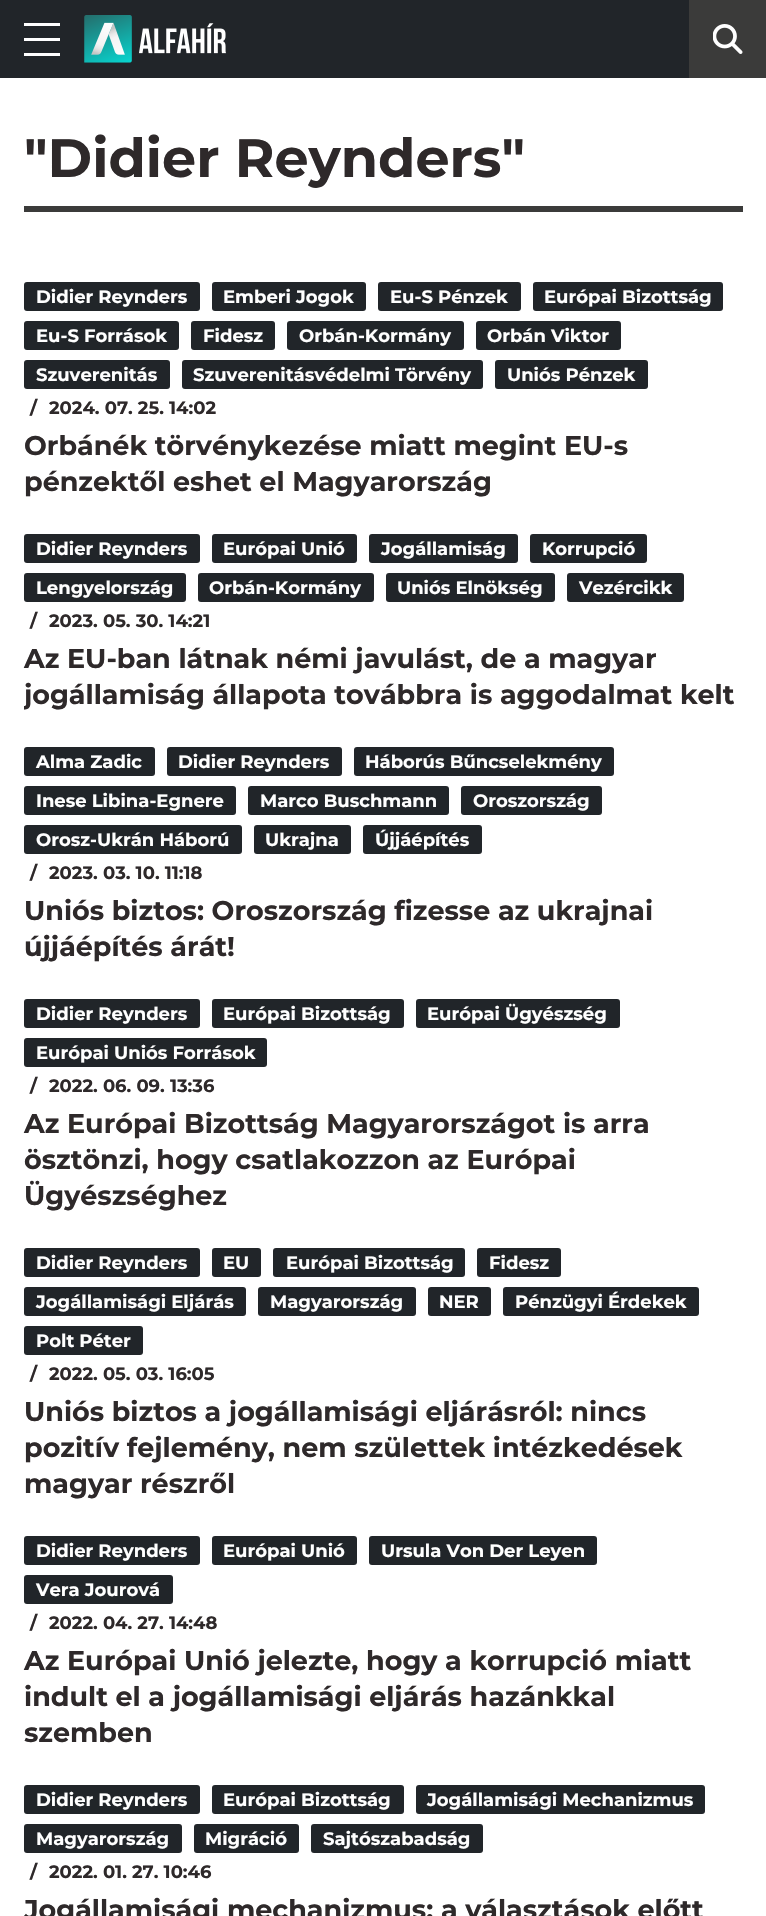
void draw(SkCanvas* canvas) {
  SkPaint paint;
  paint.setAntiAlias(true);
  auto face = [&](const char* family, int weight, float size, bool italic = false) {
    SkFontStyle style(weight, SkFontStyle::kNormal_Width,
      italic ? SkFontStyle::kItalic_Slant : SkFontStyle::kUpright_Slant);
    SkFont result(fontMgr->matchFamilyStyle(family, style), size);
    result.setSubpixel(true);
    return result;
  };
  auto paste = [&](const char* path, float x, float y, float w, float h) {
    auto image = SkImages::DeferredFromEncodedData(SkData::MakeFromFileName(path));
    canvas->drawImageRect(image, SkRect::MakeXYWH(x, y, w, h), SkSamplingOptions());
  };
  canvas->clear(0xffffffff);
  {
    const struct { float x, y, w, h; SkColor color; } items[] = {
      {0, 0, 689, 78, 0xff212529},
      {24, 23, 36, 3, 0xffffffff},
      {24, 38, 36, 3, 0xffffffff},
      {24, 53, 36, 3, 0xffffffff},
    };
    for (auto [x, y, w, h, color] : items) {
      paint.setColor(color);
      canvas->drawRect(SkRect::MakeXYWH(x, y, w, h), paint);
    }
  }
  paste("img/1.png", 84, 15, 142, 48);
  paint.setColor(0xff3b3b3a);
  canvas->drawRect(SkRect::MakeXYWH(689, 0, 77, 78), paint);
  paste("img/2.png", 713, 24, 30, 30);
  canvas->drawRect(SkRect::MakeXYWH(24, 206, 719, 6), paint);
  paint.setColor(0xff212529);
  canvas->drawRoundRect(SkRect::MakeXYWH(24, 282, 176, 29), 3, 3, paint);
  canvas->drawRoundRect(SkRect::MakeXYWH(212, 282, 154, 29), 3, 3, paint);
  canvas->drawRoundRect(SkRect::MakeXYWH(378, 282, 143, 29), 3, 3, paint);
  canvas->drawRoundRect(SkRect::MakeXYWH(533, 282, 190, 29), 3, 3, paint);
  canvas->drawRoundRect(SkRect::MakeXYWH(24, 321, 155, 29), 3, 3, paint);
  canvas->drawRoundRect(SkRect::MakeXYWH(191, 321, 84, 29), 3, 3, paint);
  canvas->drawRoundRect(SkRect::MakeXYWH(287, 321, 177, 29), 3, 3, paint);
  canvas->drawRoundRect(SkRect::MakeXYWH(476, 321, 145, 29), 3, 3, paint);
  canvas->drawRoundRect(SkRect::MakeXYWH(24, 360, 146, 29), 3, 3, paint);
  canvas->drawRoundRect(SkRect::MakeXYWH(182, 360, 301, 29), 3, 3, paint);
  canvas->drawRoundRect(SkRect::MakeXYWH(495, 360, 153, 29), 3, 3, paint);
  canvas->drawRoundRect(SkRect::MakeXYWH(24, 534, 176, 29), 3, 3, paint);
  canvas->drawRoundRect(SkRect::MakeXYWH(212, 534, 145, 29), 3, 3, paint);
  canvas->drawRoundRect(SkRect::MakeXYWH(369, 534, 149, 29), 3, 3, paint);
  canvas->drawRoundRect(SkRect::MakeXYWH(530, 534, 117, 29), 3, 3, paint);
  canvas->drawRoundRect(SkRect::MakeXYWH(24, 573, 162, 29), 3, 3, paint);
  canvas->drawRoundRect(SkRect::MakeXYWH(198, 573, 176, 29), 3, 3, paint);
  canvas->drawRoundRect(SkRect::MakeXYWH(386, 573, 169, 29), 3, 3, paint);
  canvas->drawRoundRect(SkRect::MakeXYWH(567, 573, 117, 29), 3, 3, paint);
  canvas->drawRoundRect(SkRect::MakeXYWH(24, 747, 131, 29), 3, 3, paint);
  canvas->drawRoundRect(SkRect::MakeXYWH(167, 747, 175, 29), 3, 3, paint);
  canvas->drawRoundRect(SkRect::MakeXYWH(354, 747, 260, 29), 3, 3, paint);
  canvas->drawRoundRect(SkRect::MakeXYWH(24, 786, 212, 29), 3, 3, paint);
  canvas->drawRoundRect(SkRect::MakeXYWH(248, 786, 201, 29), 3, 3, paint);
  canvas->drawRoundRect(SkRect::MakeXYWH(461, 786, 141, 29), 3, 3, paint);
  canvas->drawRoundRect(SkRect::MakeXYWH(24, 825, 218, 29), 3, 3, paint);
  canvas->drawRoundRect(SkRect::MakeXYWH(254, 825, 97, 29), 3, 3, paint);
  canvas->drawRoundRect(SkRect::MakeXYWH(363, 825, 119, 29), 3, 3, paint);
  canvas->drawRoundRect(SkRect::MakeXYWH(24, 999, 176, 29), 3, 3, paint);
  canvas->drawRoundRect(SkRect::MakeXYWH(212, 999, 192, 29), 3, 3, paint);
  canvas->drawRoundRect(SkRect::MakeXYWH(416, 999, 204, 29), 3, 3, paint);
  canvas->drawRoundRect(SkRect::MakeXYWH(24, 1038, 243, 29), 3, 3, paint);
  canvas->drawRoundRect(SkRect::MakeXYWH(24, 1248, 176, 29), 3, 3, paint);
  canvas->drawRoundRect(SkRect::MakeXYWH(212, 1248, 49, 29), 3, 3, paint);
  canvas->drawRoundRect(SkRect::MakeXYWH(273, 1248, 192, 29), 3, 3, paint);
  canvas->drawRoundRect(SkRect::MakeXYWH(477, 1248, 84, 29), 3, 3, paint);
  canvas->drawRoundRect(SkRect::MakeXYWH(24, 1287, 222, 29), 3, 3, paint);
  canvas->drawRoundRect(SkRect::MakeXYWH(258, 1287, 158, 29), 3, 3, paint);
  canvas->drawRoundRect(SkRect::MakeXYWH(428, 1287, 63, 29), 3, 3, paint);
  canvas->drawRoundRect(SkRect::MakeXYWH(503, 1287, 196, 29), 3, 3, paint);
  canvas->drawRoundRect(SkRect::MakeXYWH(24, 1326, 119, 29), 3, 3, paint);
  canvas->drawRoundRect(SkRect::MakeXYWH(24, 1536, 176, 29), 3, 3, paint);
  canvas->drawRoundRect(SkRect::MakeXYWH(212, 1536, 145, 29), 3, 3, paint);
  canvas->drawRoundRect(SkRect::MakeXYWH(369, 1536, 228, 29), 3, 3, paint);
  canvas->drawRoundRect(SkRect::MakeXYWH(24, 1575, 149, 29), 3, 3, paint);
  canvas->drawRoundRect(SkRect::MakeXYWH(24, 1785, 176, 29), 3, 3, paint);
  canvas->drawRoundRect(SkRect::MakeXYWH(212, 1785, 192, 29), 3, 3, paint);
  canvas->drawRoundRect(SkRect::MakeXYWH(416, 1785, 289, 29), 3, 3, paint);
  canvas->drawRoundRect(SkRect::MakeXYWH(24, 1824, 158, 29), 3, 3, paint);
  canvas->drawRoundRect(SkRect::MakeXYWH(194, 1824, 105, 29), 3, 3, paint);
  canvas->drawRoundRect(SkRect::MakeXYWH(311, 1824, 172, 29), 3, 3, paint);
  auto f0 = face("Montserrat", 700, 54);
  paint.setColor(0xff2e292a);
  canvas->drawString("\"Didier Reynders\"", 24, 177, f0, paint);
  auto f1 = face("Montserrat", 700, 18);
  paint.setColor(0xffffffff);
  {
    const struct { const char* s; float x, y; } items[] = {
      {"Didier Reynders", 36, 303},
      {"Emberi Jogok", 223, 303},
      {"Eu-S Pénzek", 390, 303},
      {"Európai Bizottság", 544, 303},
      {"Eu-S Források", 36, 342},
      {"Fidesz", 203, 342},
      {"Orbán-Kormány", 299, 342},
      {"Orbán Viktor", 487, 342},
      {"Szuverenitás", 36, 381},
      {"Szuverenitásvédelmi Törvény", 193, 381},
      {"Uniós Pénzek", 507, 381},
    };
    for (auto [s, x, y] : items) {
      canvas->drawString(s, x, y, f1, paint);
    }
  }
  paint.setColor(0xff2e292a);
  canvas->drawString("/", 30, 414, f1, paint);
  canvas->drawString("2024. 07. 25. 14:02", 49, 414, f1, paint);
  auto f2 = face("Montserrat", 700, 27);
  canvas->drawString("Orbánék törvénykezése miatt megint EU-s", 24, 455, f2, paint);
  canvas->drawString("pénzektől eshet el Magyarország", 24, 491, f2, paint);
  paint.setColor(0xffffffff);
  {
    const struct { const char* s; float x, y; } items[] = {
      {"Didier Reynders", 36, 555},
      {"Európai Unió", 223, 555},
      {"Jogállamiság", 381, 555},
      {"Korrupció", 542, 555},
      {"Lengyelország", 36, 594},
      {"Orbán-Kormány", 209, 594},
      {"Uniós Elnökség", 397, 594},
      {"Vezércikk", 579, 594},
    };
    for (auto [s, x, y] : items) {
      canvas->drawString(s, x, y, f1, paint);
    }
  }
  paint.setColor(0xff2e292a);
  canvas->drawString("/", 30, 627, f1, paint);
  canvas->drawString("2023. 05. 30. 14:21", 49, 627, f1, paint);
  canvas->drawString("Az EU-ban látnak némi javulást, de a magyar", 24, 668, f2, paint);
  canvas->save();
  canvas->clipRect(SkRect::MakeXYWH(24, 641, 719, 72));
  canvas->drawString("jogállamiság állapota továbbra is aggodalmat kelt", 24, 704, f2, paint);
  canvas->restore();
  paint.setColor(0xffffffff);
  {
    const struct { const char* s; float x, y; } items[] = {
      {"Alma Zadic", 36, 768},
      {"Didier Reynders", 178, 768},
      {"Háborús Bűncselekmény", 365, 768},
      {"Inese Libina-Egnere", 36, 807},
      {"Marco Buschmann", 260, 807},
      {"Oroszország", 473, 807},
      {"Orosz-Ukrán Háború", 36, 846},
      {"Ukrajna", 265, 846},
      {"Újjáépítés", 375, 846},
    };
    for (auto [s, x, y] : items) {
      canvas->drawString(s, x, y, f1, paint);
    }
  }
  paint.setColor(0xff2e292a);
  canvas->drawString("/", 30, 879, f1, paint);
  canvas->drawString("2023. 03. 10. 11:18", 49, 879, f1, paint);
  canvas->drawString("Uniós biztos: Oroszország fizesse az ukrajnai", 24, 920, f2, paint);
  canvas->drawString("újjáépítés árát!", 24, 956, f2, paint);
  paint.setColor(0xffffffff);
  {
    const struct { const char* s; float x, y; } items[] = {
      {"Didier Reynders", 36, 1020},
      {"Európai Bizottság", 223, 1020},
      {"Európai Ügyészség", 427, 1020},
      {"Európai Uniós Források", 36, 1059},
    };
    for (auto [s, x, y] : items) {
      canvas->drawString(s, x, y, f1, paint);
    }
  }
  paint.setColor(0xff2e292a);
  canvas->drawString("/", 30, 1092, f1, paint);
  canvas->drawString("2022. 06. 09. 13:36", 49, 1092, f1, paint);
  {
    const struct { const char* s; float x, y; } items[] = {
      {"Az Európai Bizottság Magyarországot is arra", 24, 1133},
      {"ösztönzi, hogy csatlakozzon az Európai", 24, 1169},
      {"Ügyészséghez", 24, 1205},
    };
    for (auto [s, x, y] : items) {
      canvas->drawString(s, x, y, f2, paint);
    }
  }
  paint.setColor(0xffffffff);
  {
    const struct { const char* s; float x, y; } items[] = {
      {"Didier Reynders", 36, 1269},
      {"EU", 223, 1269},
      {"Európai Bizottság", 286, 1269},
      {"Fidesz", 489, 1269},
      {"Jogállamisági Eljárás", 36, 1308},
      {"Magyarország", 270, 1308},
      {"NER", 439, 1308},
      {"Pénzügyi Érdekek", 515, 1308},
      {"Polt Péter", 36, 1347},
    };
    for (auto [s, x, y] : items) {
      canvas->drawString(s, x, y, f1, paint);
    }
  }
  paint.setColor(0xff2e292a);
  canvas->drawString("/", 30, 1380, f1, paint);
  canvas->drawString("2022. 05. 03. 16:05", 49, 1380, f1, paint);
  {
    const struct { const char* s; float x, y; } items[] = {
      {"Uniós biztos a jogállamisági eljárásról: nincs", 24, 1421},
      {"pozitív fejlemény, nem születtek intézkedések", 24, 1457},
      {"magyar részről", 24, 1493},
    };
    for (auto [s, x, y] : items) {
      canvas->drawString(s, x, y, f2, paint);
    }
  }
  paint.setColor(0xffffffff);
  {
    const struct { const char* s; float x, y; } items[] = {
      {"Didier Reynders", 36, 1557},
      {"Európai Unió", 223, 1557},
      {"Ursula Von Der Leyen", 381, 1557},
      {"Vera Jourová", 36, 1596},
    };
    for (auto [s, x, y] : items) {
      canvas->drawString(s, x, y, f1, paint);
    }
  }
  paint.setColor(0xff2e292a);
  canvas->drawString("/", 30, 1629, f1, paint);
  canvas->drawString("2022. 04. 27. 14:48", 49, 1629, f1, paint);
  {
    const struct { const char* s; float x, y; } items[] = {
      {"Az Európai Unió jelezte, hogy a korrupció miatt", 24, 1670},
      {"indult el a jogállamisági eljárás hazánkkal", 24, 1706},
      {"szemben", 24, 1742},
    };
    for (auto [s, x, y] : items) {
      canvas->drawString(s, x, y, f2, paint);
    }
  }
  paint.setColor(0xffffffff);
  {
    const struct { const char* s; float x, y; } items[] = {
      {"Didier Reynders", 36, 1806},
      {"Európai Bizottság", 223, 1806},
      {"Jogállamisági Mechanizmus", 427, 1806},
      {"Magyarország", 36, 1845},
      {"Migráció", 205, 1845},
      {"Sajtószabadság", 323, 1845},
    };
    for (auto [s, x, y] : items) {
      canvas->drawString(s, x, y, f1, paint);
    }
  }
  paint.setColor(0xff2e292a);
  canvas->drawString("/", 30, 1878, f1, paint);
  canvas->drawString("2022. 01. 27. 10:46", 49, 1878, f1, paint);
  canvas->drawString("Jogállamisági mechanizmus: a választások előtt", 24, 1919, f2, paint);
}
